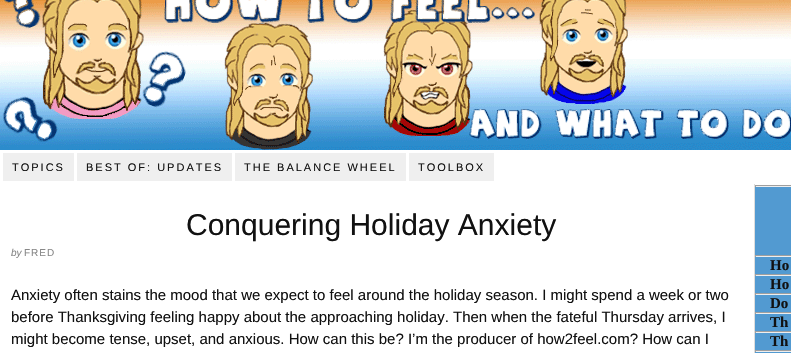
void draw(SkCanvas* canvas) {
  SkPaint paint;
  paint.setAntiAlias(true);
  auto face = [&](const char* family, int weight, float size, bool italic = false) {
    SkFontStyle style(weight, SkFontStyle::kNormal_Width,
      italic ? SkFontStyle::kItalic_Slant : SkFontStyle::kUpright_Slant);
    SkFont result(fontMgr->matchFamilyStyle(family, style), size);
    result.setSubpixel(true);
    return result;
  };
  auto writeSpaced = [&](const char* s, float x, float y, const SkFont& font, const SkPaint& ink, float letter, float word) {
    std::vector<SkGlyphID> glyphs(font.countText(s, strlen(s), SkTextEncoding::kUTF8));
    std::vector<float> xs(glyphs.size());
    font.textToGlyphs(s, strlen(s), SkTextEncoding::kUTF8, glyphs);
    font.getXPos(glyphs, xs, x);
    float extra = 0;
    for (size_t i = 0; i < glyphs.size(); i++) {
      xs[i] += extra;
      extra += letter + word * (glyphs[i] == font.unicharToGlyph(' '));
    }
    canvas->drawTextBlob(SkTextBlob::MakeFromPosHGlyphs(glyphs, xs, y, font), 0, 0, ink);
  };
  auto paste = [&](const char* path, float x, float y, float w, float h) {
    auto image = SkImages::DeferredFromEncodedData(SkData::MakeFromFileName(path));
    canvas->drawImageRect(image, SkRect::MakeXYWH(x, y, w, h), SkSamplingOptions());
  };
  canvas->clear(0xffffffff);
  paste("img/1.png", 0, 0, 791, 150);
  {
    const struct { float x, y, w, h; SkColor color; } items[] = {
      {3, 153, 71, 28, 0xffefefef},
      {77, 153, 155, 28, 0xffefefef},
      {235, 153, 171, 28, 0xffefefef},
      {409, 153, 85, 28, 0xffefefef},
      {754, 184, 1, 169, 0xffdddddd},
      {755, 187, 36, 166, 0xff529ad1},
      {755, 185, 36, 1, 0xff9f9f9f},
      {755, 186, 36, 1, 0xffeeeeee},
      {755, 185, 1, 2, 0xff9f9f9f},
      {755, 255, 36, 1, 0xff9f9f9f},
      {755, 256, 36, 1, 0xffeeeeee},
      {755, 255, 1, 2, 0xff9f9f9f},
      {755, 274, 36, 1, 0xff9f9f9f},
      {755, 275, 36, 1, 0xffeeeeee},
      {755, 274, 1, 2, 0xff9f9f9f},
      {755, 293, 36, 1, 0xff9f9f9f},
      {755, 294, 36, 1, 0xffeeeeee},
      {755, 293, 1, 2, 0xff9f9f9f},
      {755, 312, 36, 1, 0xff9f9f9f},
      {755, 313, 36, 1, 0xffeeeeee},
      {755, 312, 1, 2, 0xff9f9f9f},
      {755, 331, 36, 1, 0xff9f9f9f},
      {755, 332, 36, 1, 0xffeeeeee},
      {755, 331, 1, 2, 0xff9f9f9f},
      {755, 350, 36, 1, 0xff9f9f9f},
      {755, 351, 36, 1, 0xffeeeeee},
      {755, 350, 1, 2, 0xff9f9f9f},
    };
    for (auto [x, y, w, h, color] : items) {
      paint.setColor(color);
      canvas->drawRect(SkRect::MakeXYWH(x, y, w, h), paint);
    }
  }
  auto f0 = face("Liberation Sans", 400, 11);
  paint.setColor(0xff111111);
  {
    const struct { const char* s; float x, y; } items[] = {
      {"TOPICS", 12, 171},
      {"BEST OF: UPDATES", 86, 171},
      {"THE BALANCE WHEEL", 244, 171},
      {"TOOLBOX", 418, 171},
    };
    for (auto [s, x, y] : items) {
      writeSpaced(s, x, y, f0, paint, 2, 0);
    }
  }
  auto f1 = face("Liberation Sans", 400, 30);
  canvas->drawString("Conquering Holiday Anxiety", 186, 235, f1, paint);
  auto f2 = face("Liberation Sans", 400, 10, true);
  paint.setColor(0xff888888);
  canvas->drawString("by", 11, 256, f2, paint);
  auto f3 = face("Liberation Sans", 400, 10);
  writeSpaced("FRED", 24, 256, f3, paint, 1, 0);
  auto f4 = face("Liberation Sans", 400, 15);
  paint.setColor(0xff111111);
  {
    const struct { const char* s; float x, y; } items[] = {
      {"Anxiety often stains the mood that we expect to feel around the holiday season. I might spend a week or two", 11, 300},
      {"before Thanksgiving feeling happy about the approaching holiday. Then when the fateful Thursday arrives, I", 11, 322},
      {"might become tense, upset, and anxious. How can this be? I’m the producer of how2feel.com? How can I", 11, 344},
    };
    for (auto [s, x, y] : items) {
      canvas->drawString(s, x, y, f4, paint);
    }
  }
  auto f5 = face("Liberation Serif", 700, 15);
  {
    const struct { const char* s; float x, y; } items[] = {
      {"Ho", 770, 270},
      {"Ho", 770, 289},
      {"Do", 770, 308},
      {"Th", 770, 327},
      {"Th", 770, 346},
    };
    for (auto [s, x, y] : items) {
      canvas->drawString(s, x, y, f5, paint);
    }
  }
}
